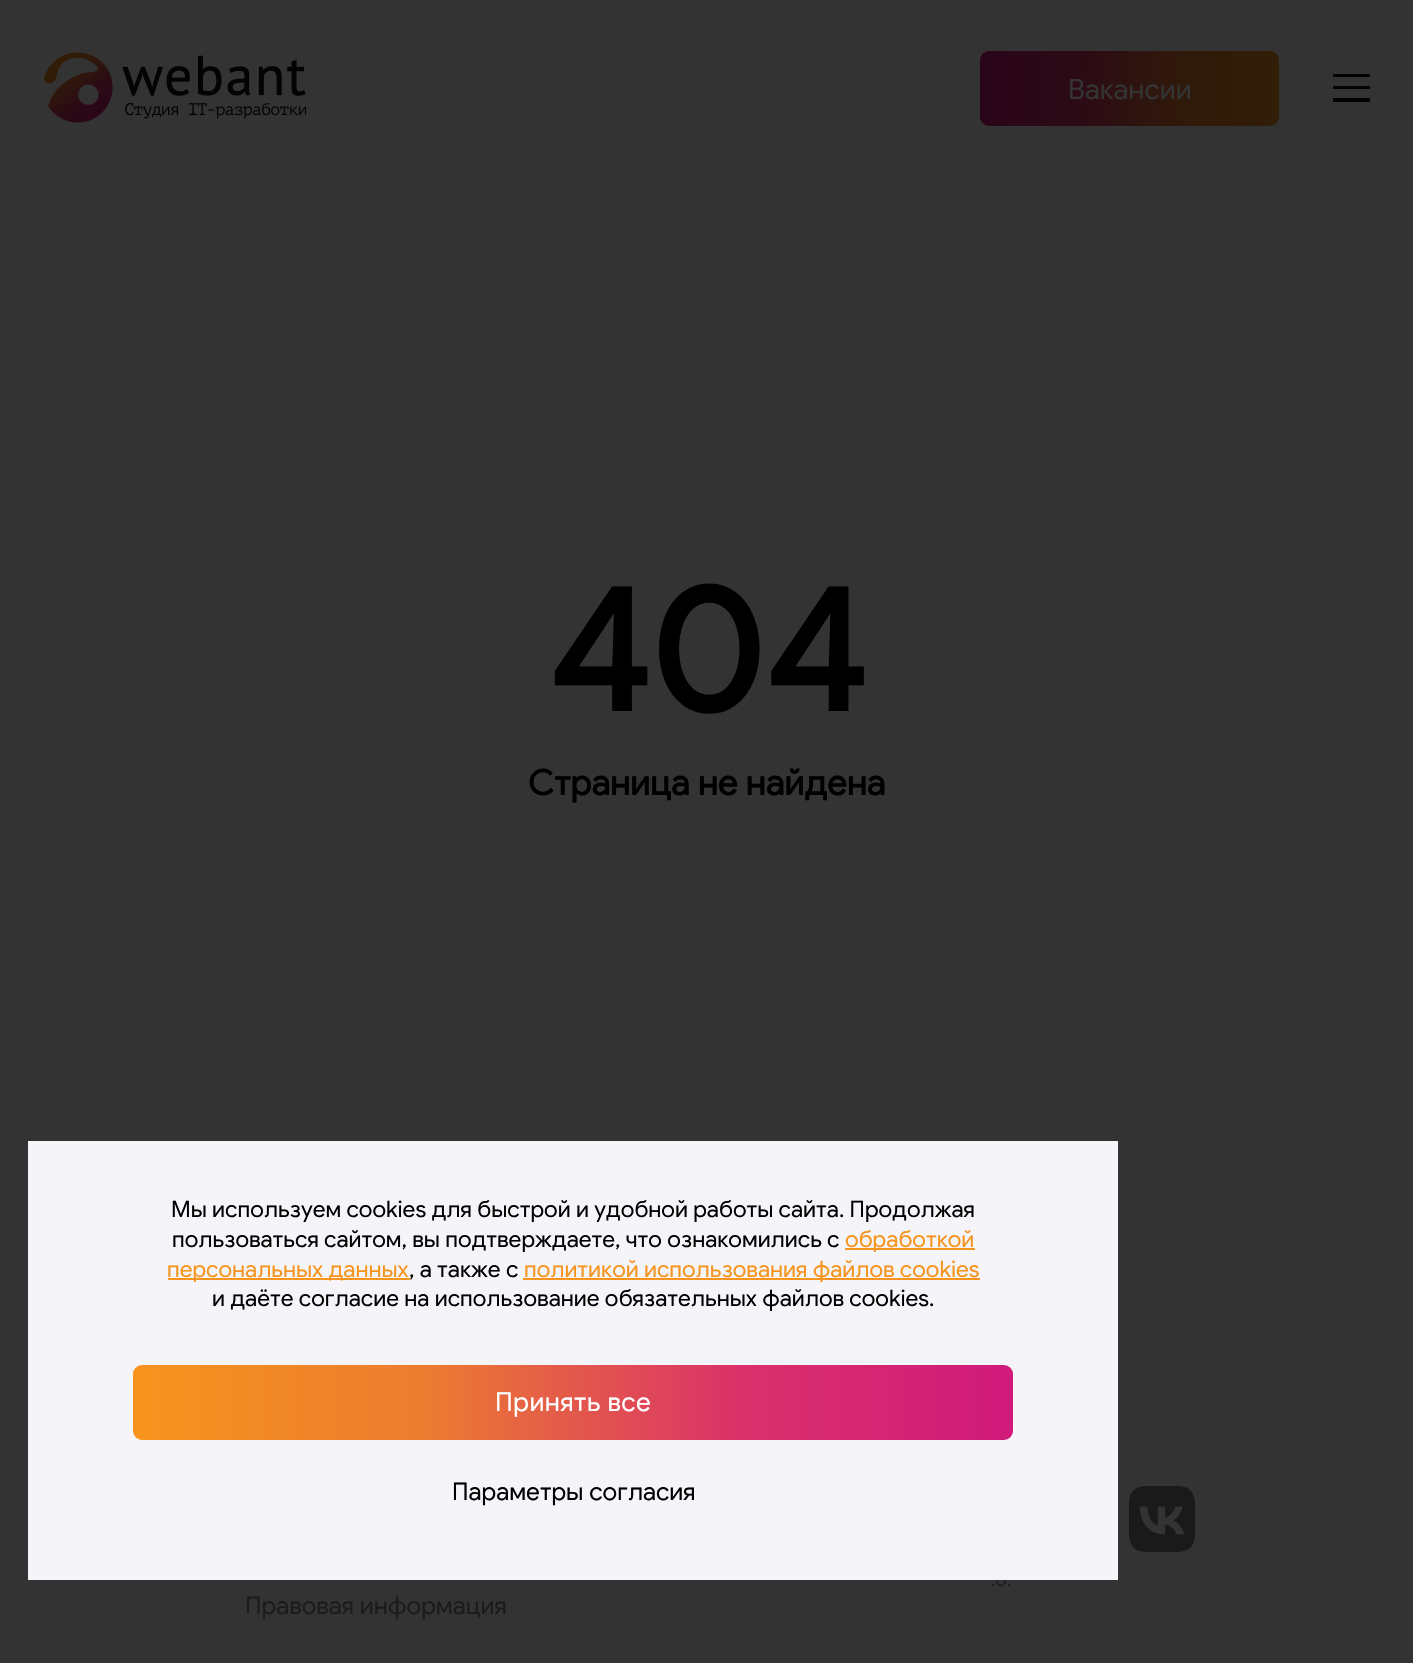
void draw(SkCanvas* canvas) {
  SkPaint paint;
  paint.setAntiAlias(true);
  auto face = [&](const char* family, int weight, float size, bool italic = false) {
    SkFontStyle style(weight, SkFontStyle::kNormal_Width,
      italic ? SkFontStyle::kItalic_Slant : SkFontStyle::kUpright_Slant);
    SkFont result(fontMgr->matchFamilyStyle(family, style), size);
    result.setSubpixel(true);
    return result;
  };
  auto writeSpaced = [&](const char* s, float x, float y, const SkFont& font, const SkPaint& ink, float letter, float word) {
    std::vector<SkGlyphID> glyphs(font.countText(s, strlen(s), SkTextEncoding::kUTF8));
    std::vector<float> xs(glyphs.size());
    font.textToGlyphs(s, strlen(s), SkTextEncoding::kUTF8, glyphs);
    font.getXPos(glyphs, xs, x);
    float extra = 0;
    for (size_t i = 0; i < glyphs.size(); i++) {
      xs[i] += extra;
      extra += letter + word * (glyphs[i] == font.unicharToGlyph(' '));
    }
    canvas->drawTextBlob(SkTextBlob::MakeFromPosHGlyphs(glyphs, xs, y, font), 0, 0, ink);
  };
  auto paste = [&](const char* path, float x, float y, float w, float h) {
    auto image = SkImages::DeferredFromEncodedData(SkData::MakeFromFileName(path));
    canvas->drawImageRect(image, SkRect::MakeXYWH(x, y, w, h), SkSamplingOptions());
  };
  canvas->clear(0xff333333);
  paste("img/1.png", 44, 52, 262, 71);
  {
    const SkColor colors[] = {0xff311e06, 0xff311e06, 0xff2f190a, 0xff2c0a15, 0xff2a0519};
    const float stops[] = {0, 0, 0.33f, 0.69f, 1};
    const SkPoint ends[] = {{1279, 88}, {980, 88}};
    paint.setShader(SkGradientShader::MakeLinear(ends, colors, stops, 5, SkTileMode::kClamp));
    paint.setAlpha(255);
  }
  canvas->drawRoundRect(SkRect::MakeXYWH(980, 51, 299, 75), 9, 9, paint);
  paint.setShader(nullptr);
  {
    const struct { float x, y, w, h; SkColor color; } items[] = {
      {1333, 86, 37, 3, 0xff030303},
      {1333, 74, 37, 3, 0xff030303},
      {1333, 98, 37, 4, 0xff030303},
    };
    for (auto [x, y, w, h, color] : items) {
      paint.setColor(color);
      canvas->drawRect(SkRect::MakeXYWH(x, y, w, h), paint);
    }
  }
  paste("img/2.png", 1129, 1486, 66, 66);
  auto f0 = face("Google Sans", 400, 28);
  paint.setColor(0xff333333);
  canvas->drawString("Вакансии", 1068, 99, f0, paint);
  auto f1 = face("Google Sans", 700, 175);
  paint.setColor(0xff000000);
  canvas->drawString("404", 547, 711, f1, paint);
  auto f2 = face("Google Sans", 700, 35);
  canvas->drawString("Страница не найдена", 528, 795, f2, paint);
  auto f3 = face("Google Sans", 400, 18);
  paint.setColor(0xff1b1b1b);
  canvas->drawString(".0.", 991, 1586, f3, paint);
  paint.setColor(0xfff5f4f9);
  canvas->drawRect(SkRect::MakeXYWH(28, 1141, 1090, 439), paint);
  auto f4 = face("Google Sans", 400, 24.5f);
  paint.setColor(0xff000000);
  canvas->drawString("Параметры согласия", 452, 1500, f4, paint);
  {
    const SkColor colors[] = {0xfff7941d, 0xfff7941d, 0xffec7c30, 0xffda316a, 0xffd01a7c};
    const float stops[] = {0, 0, 0.33f, 0.69f, 1};
    const SkPoint ends[] = {{133, 1403}, {1013, 1403}};
    paint.setShader(SkGradientShader::MakeLinear(ends, colors, stops, 5, SkTileMode::kClamp));
    paint.setAlpha(255);
  }
  canvas->drawRoundRect(SkRect::MakeXYWH(133, 1365, 880, 75), 9, 9, paint);
  auto f5 = face("Google Sans", 400, 26.25f);
  paint.setShader(nullptr);
  paint.setColor(0xffffffff);
  writeSpaced("Принять все", 495, 1411, f5, paint, 0.5f, 0);
  auto f6 = face("Google Sans", 400, 22.75f);
  paint.setColor(0xff000000);
  canvas->drawString("и даёте согласие на использование обязательных файлов cookies.", 212, 1306, f6, paint);
  paint.setColor(0xfff7941d);
  canvas->drawRect(SkRect::MakeXYWH(523, 1278, 457, 2), paint);
  canvas->drawString("политикой использования файлов cookies", 524, 1277, f6, paint);
  paint.setColor(0xff000000);
  canvas->drawString(", а также с", 409, 1277, f6, paint);
  paint.setColor(0xfff7941d);
  canvas->drawRect(SkRect::MakeXYWH(168, 1278, 242, 2), paint);
  canvas->drawString("персональных данных", 167, 1277, f6, paint);
  canvas->drawRect(SkRect::MakeXYWH(845, 1248, 130, 2), paint);
  canvas->drawString("обработкой", 845, 1247, f6, paint);
  paint.setColor(0xff000000);
  canvas->drawString("пользоваться сайтом, вы подтверждаете, что ознакомились с", 172, 1247, f6, paint);
  canvas->drawString("Мы используем cookies для быстрой и удобной работы сайта. Продолжая", 171, 1217, f6, paint);
  paint.setColor(0xff1b1b1b);
  canvas->drawString("Правовая информация", 245, 1614, f4, paint);
}
